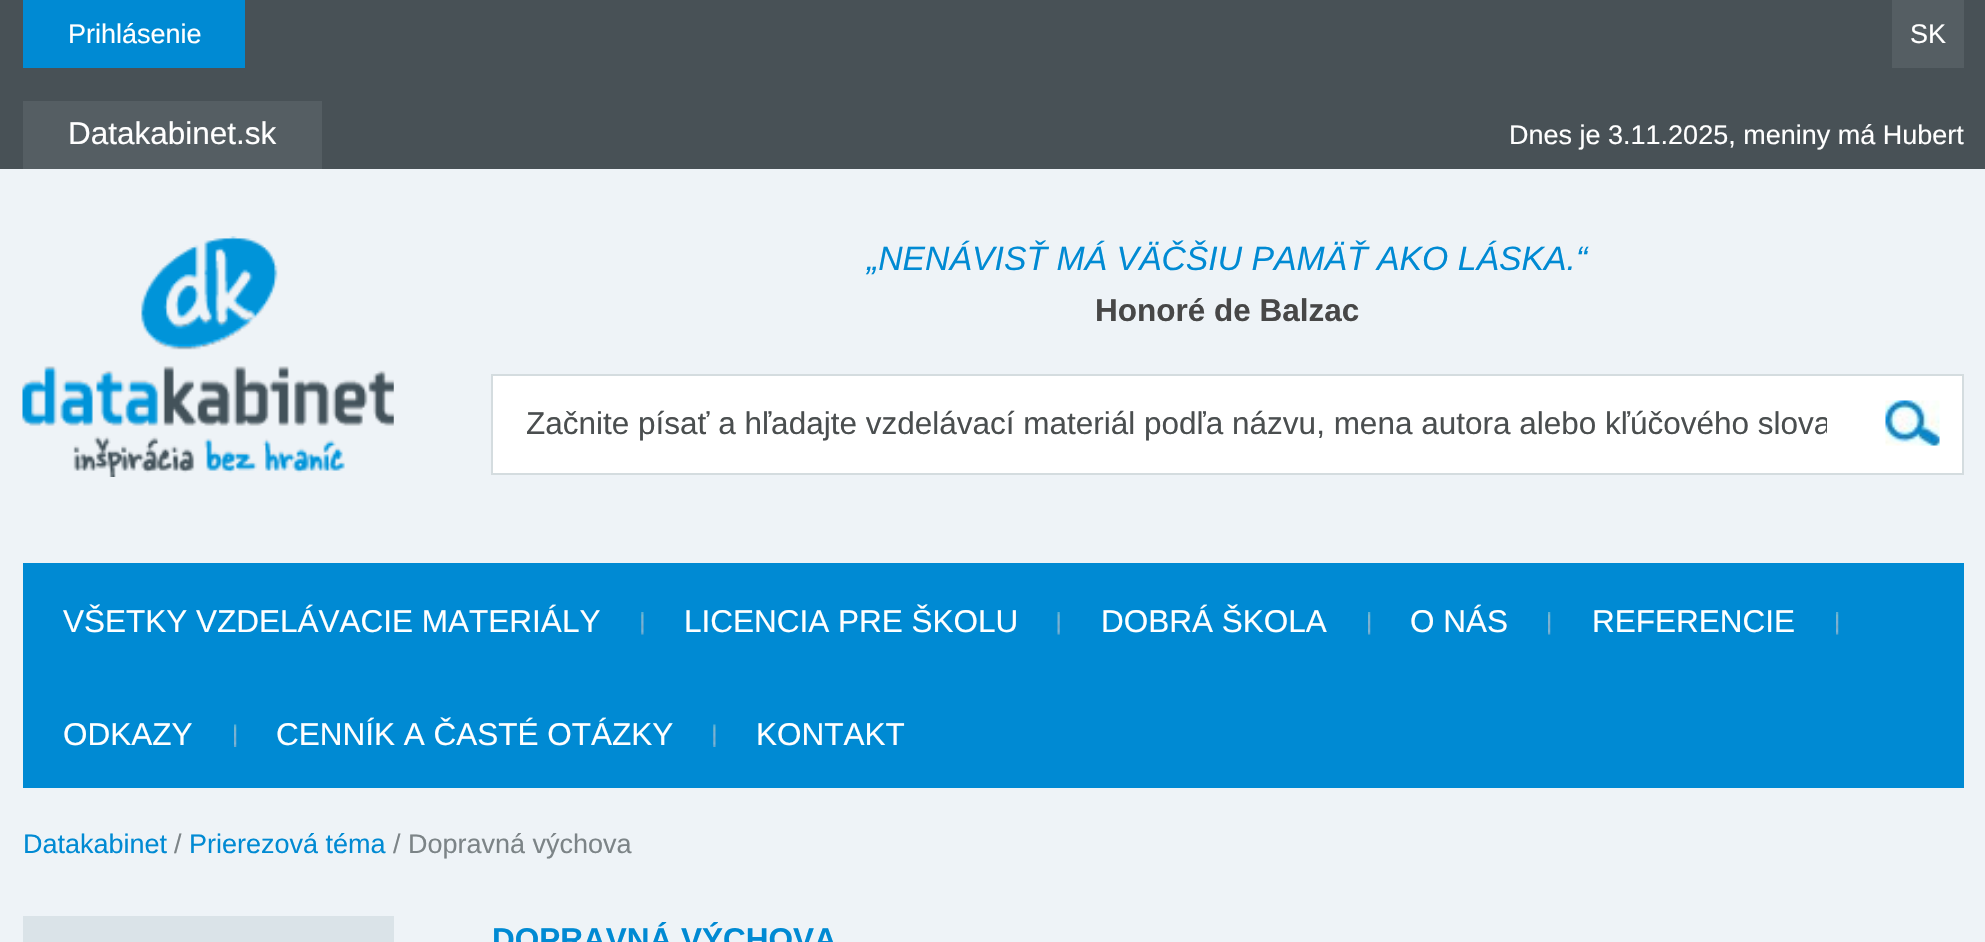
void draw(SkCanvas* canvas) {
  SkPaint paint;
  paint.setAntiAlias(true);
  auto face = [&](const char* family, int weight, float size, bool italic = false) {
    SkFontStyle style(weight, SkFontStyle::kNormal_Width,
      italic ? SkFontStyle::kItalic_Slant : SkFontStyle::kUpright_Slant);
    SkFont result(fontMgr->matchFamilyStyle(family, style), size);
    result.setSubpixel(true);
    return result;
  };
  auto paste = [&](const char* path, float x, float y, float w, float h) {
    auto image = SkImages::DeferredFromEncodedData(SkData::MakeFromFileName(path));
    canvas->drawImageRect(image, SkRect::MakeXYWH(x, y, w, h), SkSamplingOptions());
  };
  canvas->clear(0xffeef3f7);
  {
    const struct { float x, y, w, h; SkColor color; } items[] = {
      {0, 0, 1985, 169, 0xff485156},
      {23, 0, 222, 68, 0xff008ad3},
      {1892, 0, 72, 68, 0xff555e63},
      {23, 101, 299, 68, 0xff555e63},
    };
    for (auto [x, y, w, h, color] : items) {
      paint.setColor(color);
      canvas->drawRect(SkRect::MakeXYWH(x, y, w, h), paint);
    }
  }
  paste("img/1.png", 22, 236, 372, 241);
  paint.setColor(0xffffffff);
  canvas->drawRect(SkRect::MakeXYWH(492, 375, 1471, 99), paint);
  paint.setStroke(true);
  paint.setStrokeWidth(2);
  paint.setColor(0xffd4dcdf);
  canvas->drawRect(SkRect::MakeXYWH(492, 375, 1471, 99), paint);
  paste("img/2.png", 1885, 400, 55, 46);
  paint.setStroke(false);
  paint.setColor(0xff008ad3);
  canvas->drawRect(SkRect::MakeXYWH(23, 563, 1941, 225), paint);
  paste("img/3.png", 641, 612, 3, 23);
  paste("img/4.png", 1057, 612, 3, 23);
  paste("img/5.png", 1368, 612, 3, 23);
  paste("img/5.png", 1548, 612, 3, 23);
  paste("img/5.png", 1836, 612, 3, 23);
  paste("img/6.png", 234, 724, 3, 23);
  paste("img/7.png", 713, 724, 3, 23);
  paint.setColor(0xffdae3e8);
  canvas->drawRect(SkRect::MakeXYWH(23, 916, 371, 26), paint);
  auto f0 = face("Liberation Sans", 400, 27);
  paint.setColor(0xffffffff);
  canvas->drawString("Prihlásenie", 68, 43, f0, paint);
  canvas->drawString("SK", 1910, 43, f0, paint);
  auto f1 = face("Liberation Sans", 400, 31.5f);
  canvas->drawString("Datakabinet.sk", 68, 144, f1, paint);
  canvas->drawString("Dnes je 3.11.2025, meniny má Hubert", 1509, 144, f0, paint);
  auto f2 = face("Liberation Sans", 400, 33.75f, true);
  paint.setColor(0xff008ad3);
  canvas->drawString("„NENÁVISŤ MÁ VÄČŠIU PAMÄŤ AKO LÁSKA.“", 867, 270, f2, paint);
  auto f3 = face("Liberation Sans", 700, 31.5f);
  paint.setColor(0xff474747);
  canvas->drawString("Honoré de Balzac", 1095, 321, f3, paint);
  canvas->save();
  canvas->clipRect(SkRect::MakeXYWH(527, 405, 1300, 36));
  paint.setColor(0xff4a4e4f);
  canvas->drawString("Začnite písať a hľadajte vzdelávací materiál podľa názvu, mena autora alebo kľúčového slova", 526, 434, f1, paint);
  canvas->restore();
  paint.setColor(0xffffffff);
  {
    const struct { const char* s; float x, y; } items[] = {
      {"VŠETKY VZDELÁVACIE MATERIÁLY", 63, 632},
      {"LICENCIA PRE ŠKOLU", 684, 632},
      {"DOBRÁ ŠKOLA", 1101, 632},
      {"O NÁS", 1410, 632},
      {"REFERENCIE", 1592, 632},
      {"ODKAZY", 63, 745},
      {"CENNÍK A ČASTÉ OTÁZKY", 276, 745},
      {"KONTAKT", 756, 745},
    };
    for (auto [s, x, y] : items) {
      canvas->drawString(s, x, y, f1, paint);
    }
  }
  paint.setColor(0xff008ad3);
  canvas->drawString("Datakabinet", 23, 853, f0, paint);
  paint.setColor(0xff7c8487);
  canvas->drawString("/", 174, 853, f0, paint);
  paint.setColor(0xff008ad3);
  canvas->drawString("Prierezová téma", 189, 853, f0, paint);
  paint.setColor(0xff7c8487);
  canvas->drawString("/ Dopravná výchova", 393, 853, f0, paint);
  paint.setColor(0xff008ad3);
  canvas->drawString("DOPRAVNÁ VÝCHOVA", 492, 950, f3, paint);
}
